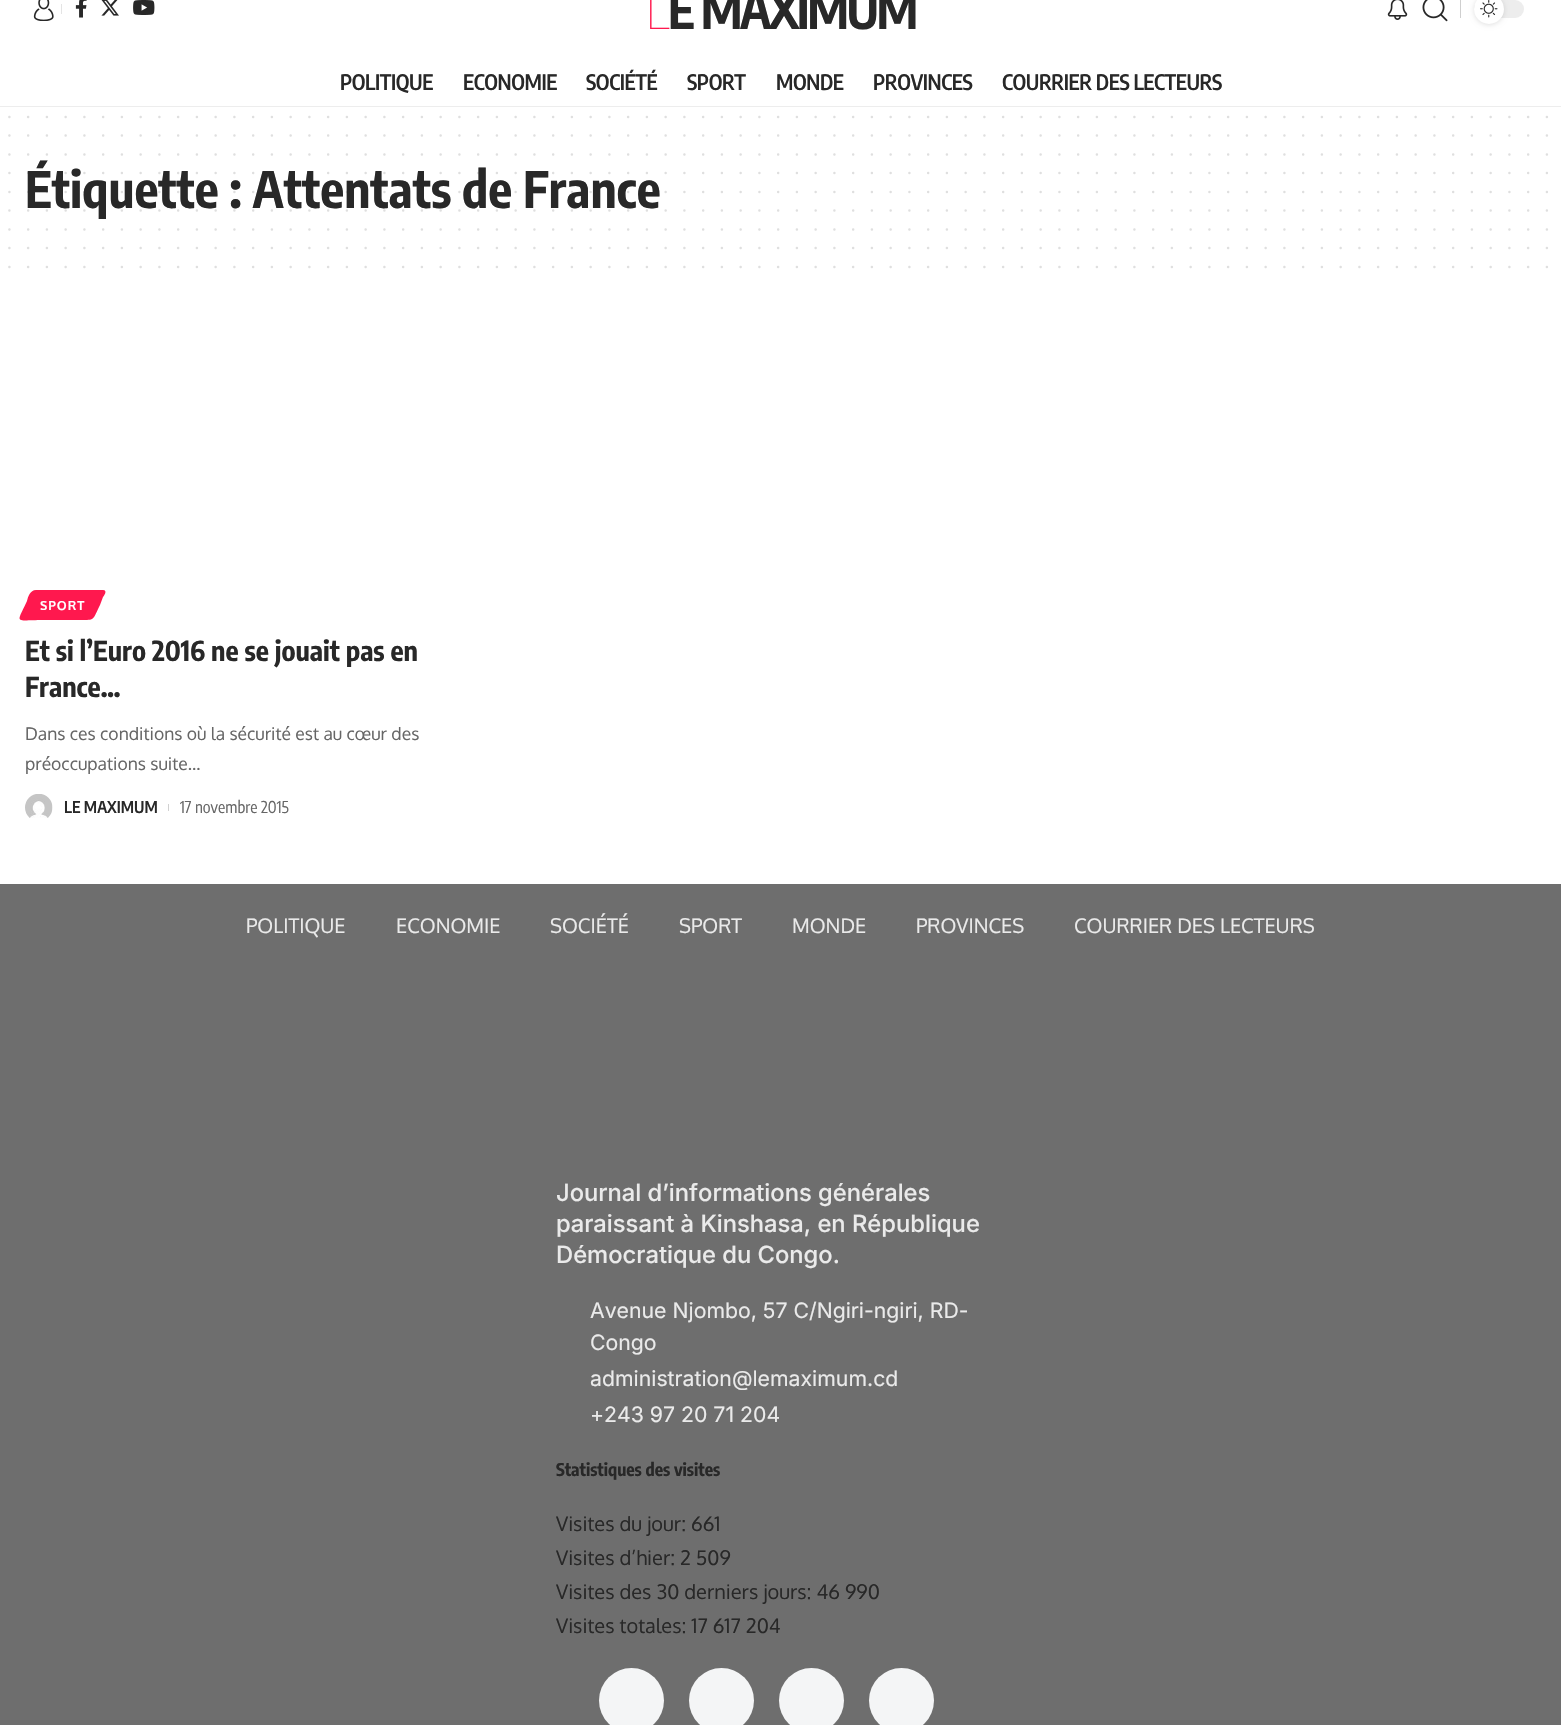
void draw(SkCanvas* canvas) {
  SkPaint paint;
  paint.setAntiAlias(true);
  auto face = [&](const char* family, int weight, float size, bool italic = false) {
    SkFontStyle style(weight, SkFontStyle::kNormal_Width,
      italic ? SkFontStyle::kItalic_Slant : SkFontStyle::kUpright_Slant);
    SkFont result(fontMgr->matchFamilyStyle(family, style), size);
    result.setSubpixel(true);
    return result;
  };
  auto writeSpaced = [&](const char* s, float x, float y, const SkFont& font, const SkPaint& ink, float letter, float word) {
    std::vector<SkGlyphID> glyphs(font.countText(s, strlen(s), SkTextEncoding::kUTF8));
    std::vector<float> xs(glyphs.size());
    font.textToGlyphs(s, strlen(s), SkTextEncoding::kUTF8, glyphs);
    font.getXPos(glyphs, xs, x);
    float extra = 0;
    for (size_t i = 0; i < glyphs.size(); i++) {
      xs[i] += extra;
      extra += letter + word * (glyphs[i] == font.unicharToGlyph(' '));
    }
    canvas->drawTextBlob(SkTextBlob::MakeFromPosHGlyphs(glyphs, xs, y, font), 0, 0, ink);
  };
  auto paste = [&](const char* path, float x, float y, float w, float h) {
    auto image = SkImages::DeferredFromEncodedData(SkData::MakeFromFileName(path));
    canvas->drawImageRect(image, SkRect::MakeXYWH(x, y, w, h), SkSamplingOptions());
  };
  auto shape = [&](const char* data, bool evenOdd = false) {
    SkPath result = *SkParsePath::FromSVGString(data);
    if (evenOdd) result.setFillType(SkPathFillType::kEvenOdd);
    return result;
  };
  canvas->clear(0xffffffff);
  paste("img/1.png", 33, 0, 21, 21);
  paint.setColor(0xffe4e4e4);
  canvas->drawRect(SkRect::MakeXYWH(61, 4, 1, 10), paint);
  paste("img/2.png", 75, 0, 12, 18);
  paste("img/3.png", 101, 0, 18, 16);
  paste("img/4.png", 133, 0, 22, 15);
  paste("img/5.png", 1387, 0, 21, 20);
  paste("img/6.png", 1422, 0, 26, 22);
  paint.setColor(0xffcfcfcf);
  canvas->drawRect(SkRect::MakeXYWH(1460, 0, 1, 18), paint);
  paint.setColor(0xffededed);
  canvas->drawRoundRect(SkRect::MakeXYWH(1474, 0, 50, 18), 9, 9, paint);
  paint.setColor(0x1f000000);
  paint.setMaskFilter(SkMaskFilter::MakeBlur(kNormal_SkBlurStyle, 2.5f));
  canvas->drawRoundRect(SkRect::MakeXYWH(1474, -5, 30, 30), 15, 15, paint);
  paint.setMaskFilter(nullptr);
  paint.setColor(0xffffffff);
  canvas->drawCircle(1489, 9, 15, paint);
  paste("img/7.png", 1480, 0, 18, 18);
  paint.setColor(0xffededed);
  canvas->drawRect(SkRect::MakeXYWH(0, 106, 1561, 1), paint);
  paint.setStroke(true);
  paint.setStrokeWidth(2.5f);
  paint.setStrokeCap(SkPaint::kRound_Cap);
  paint.setColor(0xffdfdfdf);
  paint.setPathEffect(SkDashPathEffect::Make({{0, 18.75f}}, 0));
  canvas->drawPath(shape("M9.4 116.9H1547.1"), paint);
  paint.setPathEffect(nullptr);
  paint.setPathEffect(SkDashPathEffect::Make({{0, 18.75f}}, 0));
  canvas->drawPath(shape("M9.4 135.6H1547.1"), paint);
  paint.setPathEffect(nullptr);
  paint.setPathEffect(SkDashPathEffect::Make({{0, 18.75f}}, 0));
  canvas->drawPath(shape("M9.4 154.4H1547.1"), paint);
  paint.setPathEffect(nullptr);
  paint.setPathEffect(SkDashPathEffect::Make({{0, 18.75f}}, 0));
  canvas->drawPath(shape("M9.4 229.4H1547.1"), paint);
  paint.setPathEffect(nullptr);
  paint.setPathEffect(SkDashPathEffect::Make({{0, 18.75f}}, 0));
  canvas->drawPath(shape("M9.4 248.1H1547.1"), paint);
  paint.setPathEffect(nullptr);
  paint.setPathEffect(SkDashPathEffect::Make({{0, 18.75f}}, 0));
  canvas->drawPath(shape("M9.4 266.9H1547.1"), paint);
  paint.setPathEffect(nullptr);
  paint.setStroke(false);
  paint.setColor(0xffff184e);
  canvas->drawPath(shape("M36 590H103C108 590 104 596 103 597L100 605C92 621 96 620 78 620H44C14 620 16 625 27 601C28 597 30 590 36 590Z"), paint);
  paste("img/8.png", 25, 794, 28, 24);
  paint.setColor(0xffd1d1d1);
  canvas->drawRect(SkRect::MakeXYWH(168, 804, 1, 7), paint);
  paint.setColor(0xff6e6e6e);
  canvas->drawRect(SkRect::MakeXYWH(0, 884, 1561, 841), paint);
  paint.setColor(0xfff4f5f6);
  canvas->drawCircle(631.5f, 1700.5f, 32.5f, paint);
  canvas->drawCircle(721.5f, 1700.5f, 32.5f, paint);
  canvas->drawCircle(811.5f, 1700.5f, 32.5f, paint);
  canvas->drawCircle(901.5f, 1700.5f, 32.5f, paint);
  auto f0 = face("Noto Sans", 100, 50);
  paint.setColor(0xffff184e);
  writeSpaced("L", 645, 29, f0, paint, -2.5f, 0);
  auto f1 = face("Encode Sans Condensed", 700, 50);
  paint.setColor(0xff282828);
  writeSpaced("E MAXIMUM", 668, 29, f1, paint, -2.5f, 0);
  auto f2 = face("Encode Sans Condensed", 600, 21.25f);
  {
    const struct { const char* s; float x, y; } items[] = {
      {"POLITIQUE", 340, 90},
      {"ECONOMIE", 463, 90},
      {"SOCIÉTÉ", 586, 90},
      {"SPORT", 687, 90},
      {"MONDE", 776, 90},
      {"PROVINCES", 873, 90},
      {"COURRIER DES LECTEURS", 1002, 90},
    };
    for (auto [s, x, y] : items) {
      writeSpaced(s, x, y, f2, paint, -0.4f, 0);
    }
  }
  canvas->drawString("Étiquette : Attentats de France", 25, 208, f1, paint);
  paint.setStroke(true);
  paint.setColor(0x26282828);
  paint.setPathEffect(SkDashPathEffect::Make({{0, 18.75f}}, 0));
  canvas->drawPath(shape("M9.4 210.6H1547.1"), paint);
  paint.setPathEffect(nullptr);
  paint.setPathEffect(SkDashPathEffect::Make({{0, 18.75f}}, 0));
  canvas->drawPath(shape("M9.4 191.9H1547.1"), paint);
  paint.setPathEffect(nullptr);
  paint.setPathEffect(SkDashPathEffect::Make({{0, 18.75f}}, 0));
  canvas->drawPath(shape("M9.4 173.1H1547.1"), paint);
  paint.setPathEffect(nullptr);
  auto f3 = face("Oxygen", 700, 12.5f);
  paint.setStroke(false);
  paint.setColor(0xffffffff);
  writeSpaced("SPORT", 40, 610, f3, paint, 1, 0);
  auto f4 = face("Encode Sans Condensed", 700, 27.5f);
  paint.setColor(0xff282828);
  canvas->drawString("Et si l’Euro 2016 ne se jouait pas en", 25, 661, f4, paint);
  canvas->drawString("France…", 25, 697, f4, paint);
  auto f5 = face("Oxygen", 400, 17.5f);
  paint.setColor(0xff666666);
  canvas->drawString("Dans ces conditions où la sécurité est au cœur des", 25, 740, f5, paint);
  canvas->drawString("préoccupations suite…", 25, 770, f5, paint);
  auto f6 = face("Encode Sans Condensed", 600, 16.25f);
  paint.setColor(0xff282828);
  canvas->drawString("LE MAXIMUM", 64, 813, f6, paint);
  auto f7 = face("Encode Sans Condensed", 400, 16.25f);
  paint.setColor(0xff666666);
  canvas->drawString("17 novembre 2015", 180, 813, f7, paint);
  auto f8 = face("Oxygen", 400, 20);
  paint.setColor(0xffeaeaea);
  {
    const struct { const char* s; float x, y; } items[] = {
      {"POLITIQUE", 246, 933},
      {"ECONOMIE", 396, 933},
      {"SOCIÉTÉ", 550, 933},
      {"SPORT", 679, 933},
      {"MONDE", 792, 933},
      {"PROVINCES", 916, 933},
      {"COURRIER DES LECTEURS", 1074, 933},
    };
    for (auto [s, x, y] : items) {
      canvas->drawString(s, x, y, f8, paint);
    }
  }
  auto f9 = face("Inter", 500, 23.75f);
  {
    const struct { const char* s; float x, y; } items[] = {
      {"Journal d’informations générales", 556, 1201},
      {"paraissant à Kinshasa, en République", 556, 1232},
      {"Démocratique du Congo.", 556, 1263},
    };
    for (auto [s, x, y] : items) {
      canvas->drawString(s, x, y, f9, paint);
    }
  }
  auto f10 = face("Inter", 400, 21.25f);
  {
    const struct { const char* s; float x, y; } items[] = {
      {"Avenue Njombo, 57 C/Ngiri-ngiri, RD-", 590, 1318},
      {"Congo", 590, 1350},
      {"administration@lemaximum.cd", 590, 1386},
      {"+243 97 20 71 204", 590, 1422},
    };
    for (auto [s, x, y] : items) {
      canvas->drawString(s, x, y, f10, paint);
    }
  }
  auto f11 = face("Encode Sans Condensed", 700, 17.5f);
  paint.setColor(0xff282828);
  canvas->drawString("Statistiques des visites", 556, 1476, f11, paint);
  {
    const struct { const char* s; float x, y; } items[] = {
      {"Visites du jour: 661", 556, 1531},
      {"Visites d’hier: 2 509", 556, 1565},
      {"Visites des 30 derniers jours: 46 990", 556, 1599},
      {"Visites totales: 17 617 204", 556, 1633},
    };
    for (auto [s, x, y] : items) {
      canvas->drawString(s, x, y, f8, paint);
    }
  }
}
